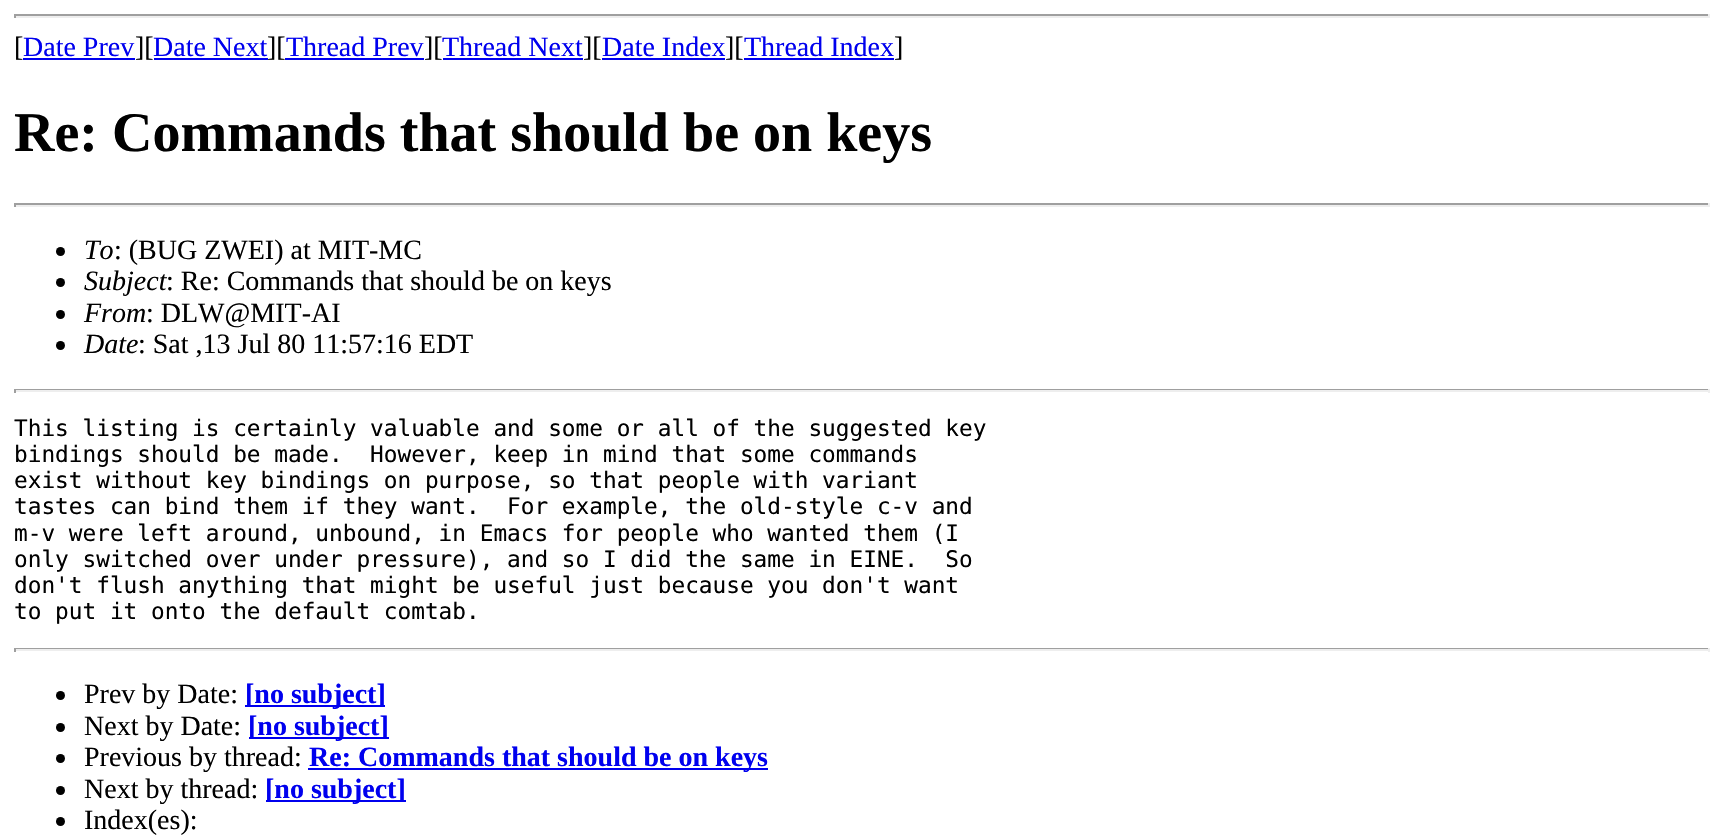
void draw(SkCanvas* canvas) {
  SkPaint paint;
  paint.setAntiAlias(true);
  auto face = [&](const char* family, int weight, float size, bool italic = false) {
    SkFontStyle style(weight, SkFontStyle::kNormal_Width,
      italic ? SkFontStyle::kItalic_Slant : SkFontStyle::kUpright_Slant);
    SkFont result(fontMgr->matchFamilyStyle(family, style), size);
    result.setSubpixel(true);
    return result;
  };
  canvas->clear(0xffffffff);
  {
    const struct { float x, y, w, h; SkColor color; } items[] = {
      {14, 14, 1696, 2, 0xff9f9f9f},
      {1708, 14, 2, 4, 0xffeeeeee},
      {14, 16, 1696, 2, 0xffeeeeee},
      {14, 14, 2, 4, 0xff9f9f9f},
      {23, 58, 112, 2, 0xff0000ee},
      {154, 58, 114, 2, 0xff0000ee},
      {443, 58, 140, 2, 0xff0000ee},
      {602, 58, 123, 2, 0xff0000ee},
      {744, 58, 150, 2, 0xff0000ee},
      {14, 203, 1696, 2, 0xff9f9f9f},
      {1708, 203, 2, 4, 0xffeeeeee},
      {14, 205, 1696, 2, 0xffeeeeee},
      {14, 203, 2, 4, 0xff9f9f9f},
    };
    for (auto [x, y, w, h, color] : items) {
      paint.setColor(color);
      canvas->drawRect(SkRect::MakeXYWH(x, y, w, h), paint);
    }
  }
  paint.setColor(0xff000000);
  canvas->drawCircle(60.5f, 251.5f, 4.5f, paint);
  canvas->drawCircle(60.5f, 282.5f, 4.5f, paint);
  canvas->drawCircle(60.5f, 314.5f, 4.5f, paint);
  canvas->drawCircle(60.5f, 345.5f, 4.5f, paint);
  {
    const struct { float x, y, w, h; SkColor color; } items[] = {
      {14, 389, 1696, 1, 0xff9f9f9f},
      {1708, 389, 2, 4, 0xffeeeeee},
      {14, 390, 1696, 2, 0xffeeeeee},
      {14, 389, 2, 4, 0xff9f9f9f},
      {14, 648, 1696, 1, 0xff9f9f9f},
      {1708, 648, 2, 4, 0xffeeeeee},
      {14, 649, 1696, 2, 0xffeeeeee},
      {14, 648, 2, 4, 0xff9f9f9f},
    };
    for (auto [x, y, w, h, color] : items) {
      paint.setColor(color);
      canvas->drawRect(SkRect::MakeXYWH(x, y, w, h), paint);
    }
  }
  paint.setColor(0xff000000);
  canvas->drawCircle(60.5f, 695.5f, 4.5f, paint);
  paint.setColor(0xff0000ee);
  canvas->drawRect(SkRect::MakeXYWH(245, 705, 140, 2), paint);
  paint.setColor(0xff000000);
  canvas->drawCircle(60.5f, 727.5f, 4.5f, paint);
  paint.setColor(0xff0000ee);
  canvas->drawRect(SkRect::MakeXYWH(249, 737, 140, 2), paint);
  paint.setColor(0xff000000);
  canvas->drawCircle(60.5f, 758.5f, 4.5f, paint);
  paint.setColor(0xff0000ee);
  canvas->drawRect(SkRect::MakeXYWH(308, 768, 460, 2), paint);
  paint.setColor(0xff000000);
  canvas->drawCircle(60.5f, 790.5f, 4.5f, paint);
  paint.setColor(0xff0000ee);
  canvas->drawRect(SkRect::MakeXYWH(266, 800, 140, 2), paint);
  paint.setColor(0xff000000);
  canvas->drawCircle(60.5f, 821.5f, 4.5f, paint);
  auto f0 = face("Liberation Serif", 400, 28);
  canvas->drawString("[", 14, 56, f0, paint);
  paint.setColor(0xff0000ee);
  canvas->drawString("Date Prev", 23, 56, f0, paint);
  paint.setColor(0xff000000);
  canvas->drawString("][", 135, 56, f0, paint);
  paint.setColor(0xff0000ee);
  canvas->drawString("Date Next", 153, 56, f0, paint);
  paint.setColor(0xff000000);
  canvas->drawString("][", 267, 56, f0, paint);
  paint.setColor(0xff0000ee);
  canvas->drawString("Thread Prev", 286, 56, f0, paint);
  canvas->drawRect(SkRect::MakeXYWH(285, 58, 139, 2), paint);
  paint.setColor(0xff000000);
  canvas->drawString("][", 424, 56, f0, paint);
  paint.setColor(0xff0000ee);
  canvas->drawString("Thread Next", 442, 56, f0, paint);
  paint.setColor(0xff000000);
  canvas->drawString("][", 583, 56, f0, paint);
  paint.setColor(0xff0000ee);
  canvas->drawString("Date Index", 602, 56, f0, paint);
  paint.setColor(0xff000000);
  canvas->drawString("][", 725, 56, f0, paint);
  paint.setColor(0xff0000ee);
  canvas->drawString("Thread Index", 744, 56, f0, paint);
  paint.setColor(0xff000000);
  canvas->drawString("]", 894, 56, f0, paint);
  auto f1 = face("Liberation Serif", 700, 56);
  canvas->drawString("Re: Commands that should be on keys", 14, 151, f1, paint);
  auto f2 = face("Liberation Serif", 400, 28, true);
  canvas->drawString("To", 84, 259, f2, paint);
  canvas->drawString(": (BUG ZWEI) at MIT-MC", 114, 259, f0, paint);
  canvas->drawString("Subject", 84, 290, f2, paint);
  canvas->drawString(": Re: Commands that should be on keys", 166, 290, f0, paint);
  canvas->drawString("From", 84, 322, f2, paint);
  canvas->drawString(": DLW@MIT-AI", 146, 322, f0, paint);
  canvas->drawString("Date", 84, 353, f2, paint);
  canvas->drawString(": Sat ,13 Jul 80 11:57:16 EDT", 138, 353, f0, paint);
  auto f3 = face("DejaVu Sans Mono", 400, 22.75f);
  {
    const struct { const char* s; float x, y; } items[] = {
      {"This listing is certainly valuable and some or all of the suggested key", 14, 436},
      {"bindings should be made.  However, keep in mind that some commands", 14, 462},
      {"exist without key bindings on purpose, so that people with variant", 14, 488},
      {"tastes can bind them if they want.  For example, the old-style c-v and", 14, 514},
      {"m-v were left around, unbound, in Emacs for people who wanted them (I", 14, 541},
      {"only switched over under pressure), and so I did the same in EINE.  So", 14, 567},
      {"don't flush anything that might be useful just because you don't want", 14, 593},
      {"to put it onto the default comtab.", 14, 619},
    };
    for (auto [s, x, y] : items) {
      canvas->drawString(s, x, y, f3, paint);
    }
  }
  canvas->drawString("Prev by Date:", 84, 703, f0, paint);
  auto f4 = face("Liberation Serif", 700, 28);
  paint.setColor(0xff0000ee);
  canvas->drawString("[no subject]", 245, 703, f4, paint);
  paint.setColor(0xff000000);
  canvas->drawString("Next by Date:", 84, 735, f0, paint);
  paint.setColor(0xff0000ee);
  canvas->drawString("[no subject]", 248, 735, f4, paint);
  paint.setColor(0xff000000);
  canvas->drawString("Previous by thread:", 84, 766, f0, paint);
  paint.setColor(0xff0000ee);
  canvas->drawString("Re: Commands that should be on keys", 309, 766, f4, paint);
  paint.setColor(0xff000000);
  canvas->drawString("Next by thread:", 84, 798, f0, paint);
  paint.setColor(0xff0000ee);
  canvas->drawString("[no subject]", 265, 798, f4, paint);
  paint.setColor(0xff000000);
  canvas->drawString("Index(es):", 84, 829, f0, paint);
}
